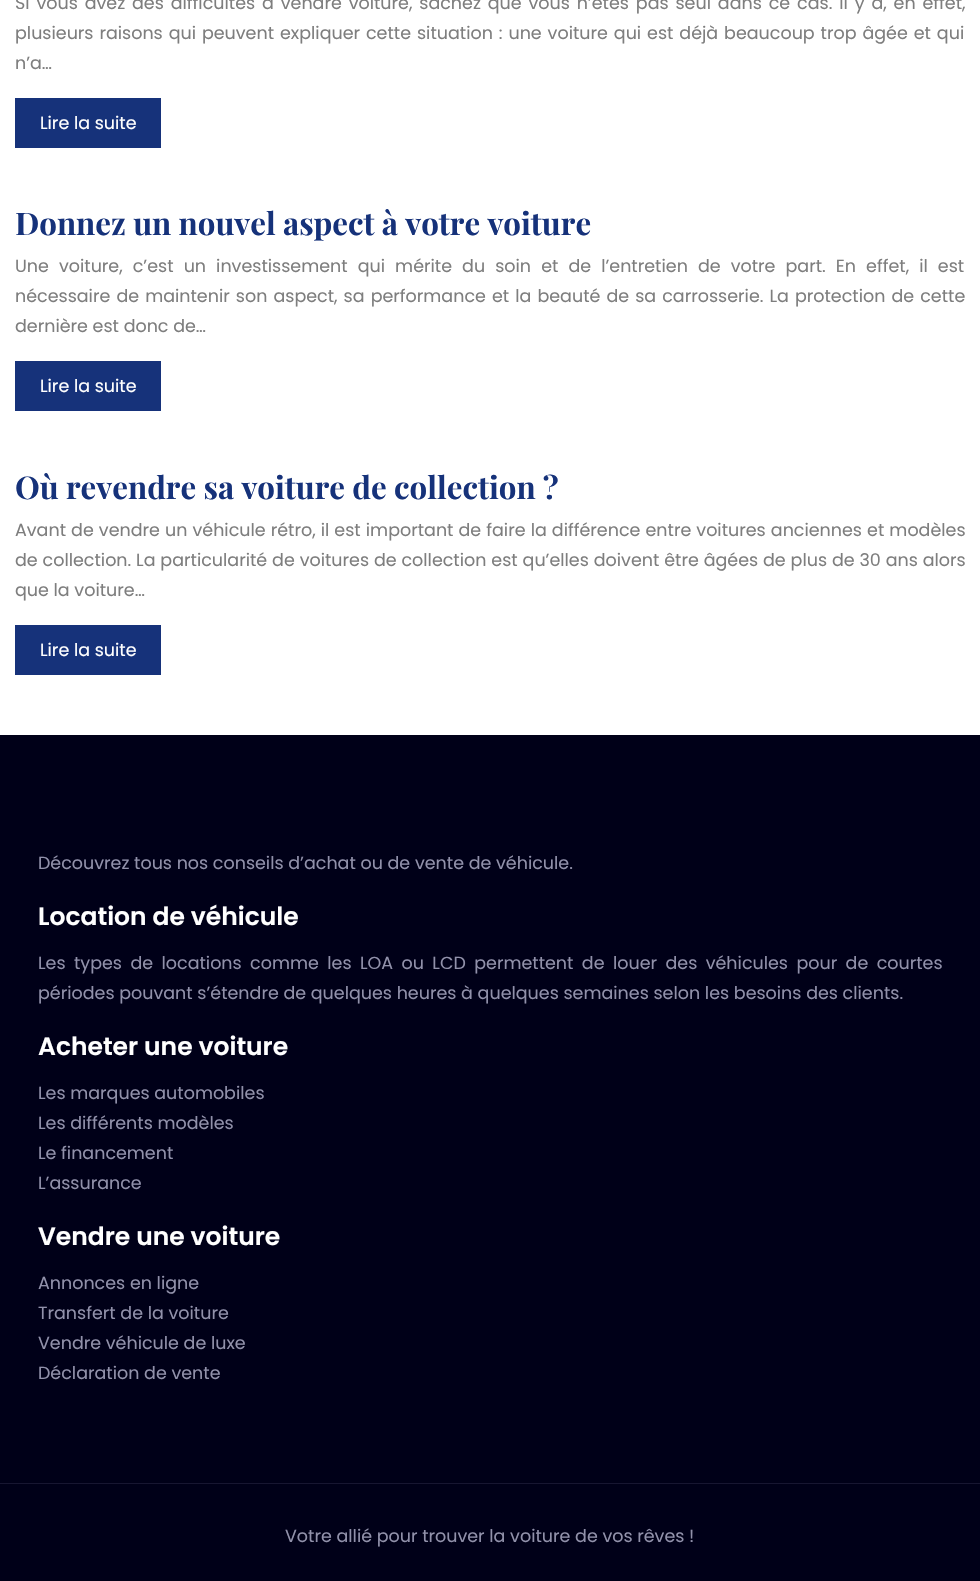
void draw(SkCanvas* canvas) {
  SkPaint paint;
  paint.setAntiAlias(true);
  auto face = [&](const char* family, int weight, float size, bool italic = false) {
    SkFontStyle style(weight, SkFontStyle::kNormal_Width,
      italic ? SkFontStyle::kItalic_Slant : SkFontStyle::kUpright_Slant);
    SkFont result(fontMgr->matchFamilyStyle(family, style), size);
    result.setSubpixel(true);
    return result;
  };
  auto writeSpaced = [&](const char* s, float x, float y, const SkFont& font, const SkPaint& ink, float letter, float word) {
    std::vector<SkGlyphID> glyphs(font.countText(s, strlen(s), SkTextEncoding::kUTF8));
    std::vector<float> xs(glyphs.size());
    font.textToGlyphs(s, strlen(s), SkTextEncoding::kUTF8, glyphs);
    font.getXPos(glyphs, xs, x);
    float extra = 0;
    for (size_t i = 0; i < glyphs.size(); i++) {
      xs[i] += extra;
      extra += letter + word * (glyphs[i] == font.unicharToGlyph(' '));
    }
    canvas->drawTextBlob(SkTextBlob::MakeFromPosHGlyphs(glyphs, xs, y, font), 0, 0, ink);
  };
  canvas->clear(0xffffffff);
  {
    const struct { float x, y, w, h; SkColor color; } items[] = {
      {15, 98, 146, 50, 0xff16327a},
      {15, 361, 146, 50, 0xff16327a},
      {15, 625, 146, 50, 0xff16327a},
      {0, 735, 980, 846, 0xff000018},
      {0, 1483, 980, 1, 0xff171631},
    };
    for (auto [x, y, w, h, color] : items) {
      paint.setColor(color);
      canvas->drawRect(SkRect::MakeXYWH(x, y, w, h), paint);
    }
  }
  auto f0 = face("Poppins", 400, 17.5f);
  paint.setColor(0xff7e7e7e);
  writeSpaced("Si vous avez des difficultés à vendre voiture, sachez que vous n’êtes pas seul dans ce cas. Il y a, en effet,", 15, 9, f0, paint, 0, 2.2f);
  writeSpaced("plusieurs raisons qui peuvent expliquer cette situation : une voiture qui est déjà beaucoup trop âgée et qui", 15, 39, f0, paint, 0, 1.25f);
  canvas->drawString("n’a…", 15, 69, f0, paint);
  paint.setColor(0xffffffff);
  canvas->drawString("Lire la suite", 40, 129, f0, paint);
  auto f1 = face("Playfair Display", 700, 31.25f);
  paint.setColor(0xff16327a);
  canvas->drawString("Donnez un nouvel aspect à votre voiture", 15, 235, f1, paint);
  paint.setColor(0xff7e7e7e);
  writeSpaced("Une voiture, c’est un investissement qui mérite du soin et de l’entretien de votre part. En effet, il est", 15, 272, f0, paint, 0, 5.4f);
  writeSpaced("nécessaire de maintenir son aspect, sa performance et la beauté de sa carrosserie. La protection de cette", 15, 302, f0, paint, 0, 1.4f);
  canvas->drawString("dernière est donc de…", 15, 332, f0, paint);
  paint.setColor(0xffffffff);
  canvas->drawString("Lire la suite", 40, 392, f0, paint);
  paint.setColor(0xff16327a);
  canvas->drawString("Où revendre sa voiture de collection ?", 15, 499, f1, paint);
  paint.setColor(0xff7e7e7e);
  writeSpaced("Avant de vendre un véhicule rétro, il est important de faire la différence entre voitures anciennes et modèles", 15, 536, f0, paint, 0, 0.4f);
  writeSpaced("de collection. La particularité de voitures de collection est qu’elles doivent être âgées de plus de 30 ans alors", 15, 566, f0, paint, 0, 0.2f);
  canvas->drawString("que la voiture…", 15, 596, f0, paint);
  paint.setColor(0xffffffff);
  canvas->drawString("Lire la suite", 40, 656, f0, paint);
  paint.setColor(0xff9191aa);
  canvas->drawString("Découvrez tous nos conseils d’achat ou de vente de véhicule.", 38, 869, f0, paint);
  auto f2 = face("Poppins", 600, 25);
  paint.setColor(0xffffffff);
  canvas->drawString("Location de véhicule", 38, 925, f2, paint);
  paint.setColor(0xff9191aa);
  writeSpaced("Les types de locations comme les LOA ou LCD permettent de louer des véhicules pour de courtes", 38, 969, f0, paint, 0, 3.75f);
  canvas->drawString("périodes pouvant s’étendre de quelques heures à quelques semaines selon les besoins des clients.", 38, 999, f0, paint);
  paint.setColor(0xffffffff);
  canvas->drawString("Acheter une voiture", 38, 1055, f2, paint);
  paint.setColor(0xff9191aa);
  {
    const struct { const char* s; float x, y; } items[] = {
      {"Les marques automobiles", 38, 1099},
      {"Les différents modèles", 38, 1129},
      {"Le financement", 38, 1159},
      {"L’assurance", 38, 1189},
    };
    for (auto [s, x, y] : items) {
      canvas->drawString(s, x, y, f0, paint);
    }
  }
  paint.setColor(0xffffffff);
  canvas->drawString("Vendre une voiture", 38, 1245, f2, paint);
  paint.setColor(0xff9191aa);
  {
    const struct { const char* s; float x, y; } items[] = {
      {"Annonces en ligne", 38, 1289},
      {"Transfert de la voiture", 38, 1319},
      {"Vendre véhicule de luxe", 38, 1349},
      {"Déclaration de vente", 38, 1379},
      {"Votre allié pour trouver la voiture de vos rêves !", 285, 1542},
    };
    for (auto [s, x, y] : items) {
      canvas->drawString(s, x, y, f0, paint);
    }
  }
}
